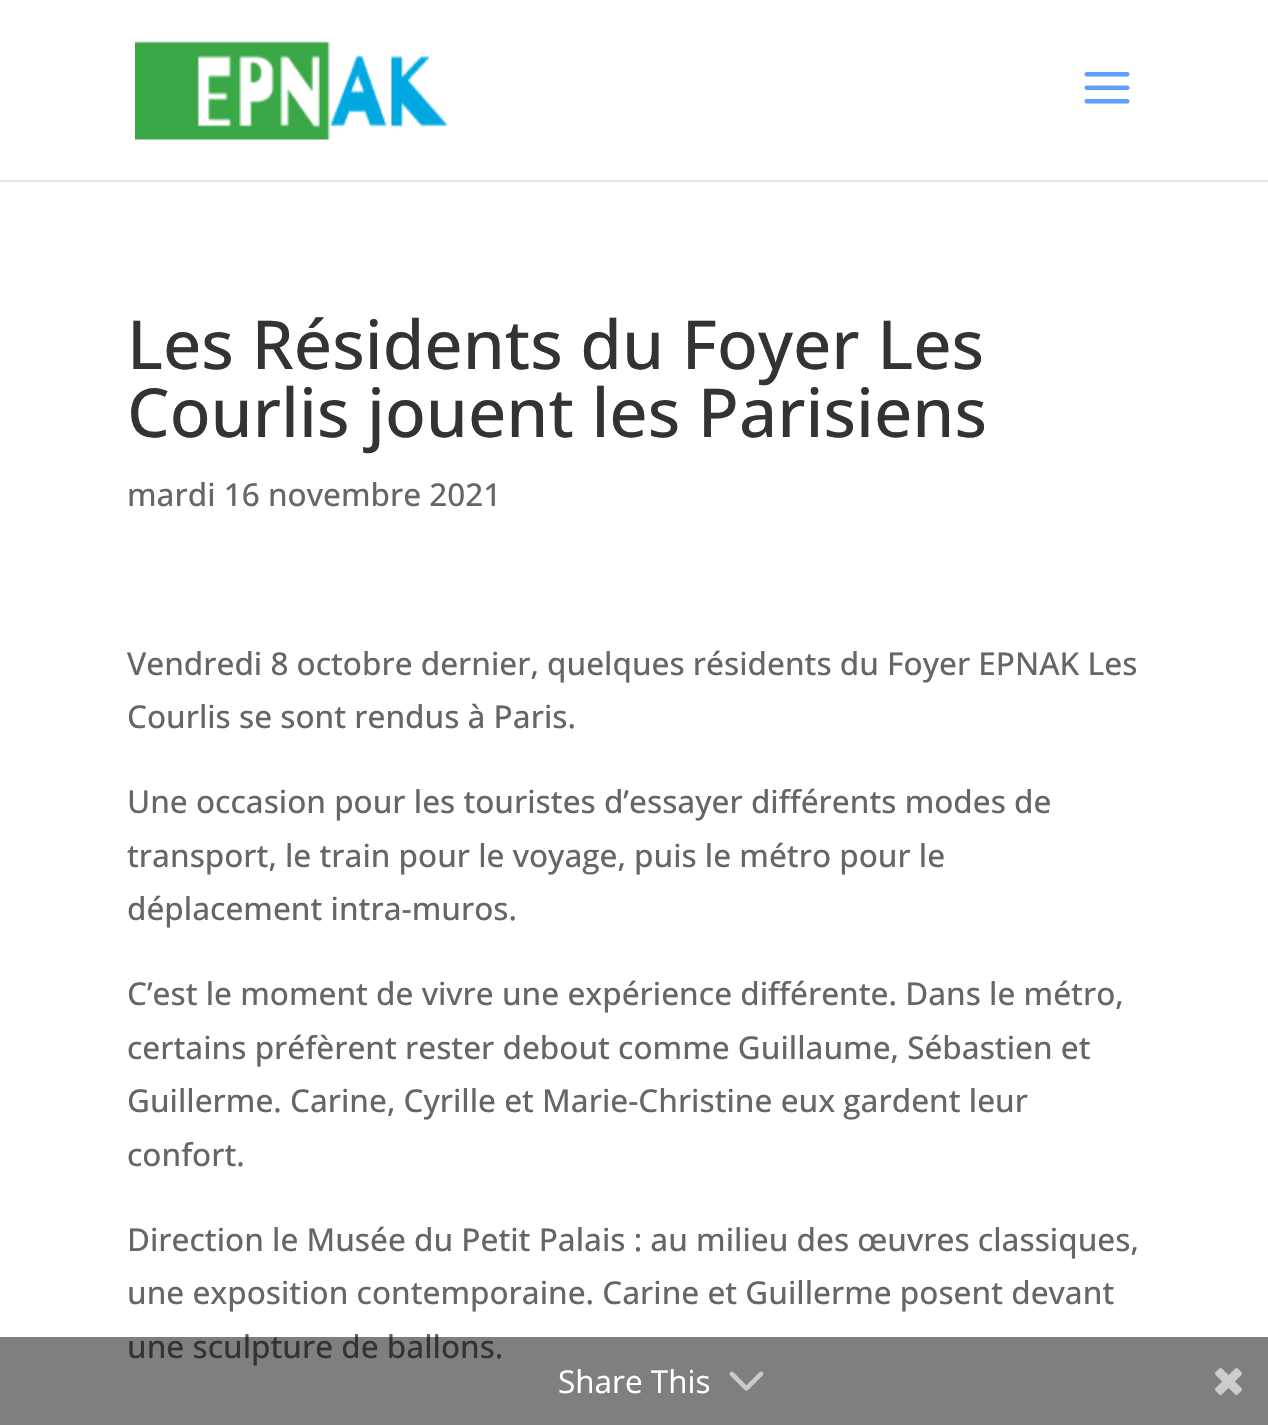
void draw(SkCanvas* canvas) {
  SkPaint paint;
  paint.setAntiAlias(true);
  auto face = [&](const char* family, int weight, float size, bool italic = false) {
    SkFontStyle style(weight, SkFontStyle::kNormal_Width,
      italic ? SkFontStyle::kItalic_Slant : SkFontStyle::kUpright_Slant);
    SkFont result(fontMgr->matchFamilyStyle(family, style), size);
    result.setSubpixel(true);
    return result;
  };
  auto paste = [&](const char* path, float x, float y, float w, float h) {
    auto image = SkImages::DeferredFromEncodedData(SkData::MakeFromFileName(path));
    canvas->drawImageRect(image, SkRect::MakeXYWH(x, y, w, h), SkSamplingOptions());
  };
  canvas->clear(0xffffffff);
  paint.setColor(0xffe6e6e6);
  canvas->drawRect(SkRect::MakeXYWH(0, 180, 1268, 2), paint);
  paste("img/1.png", 135, 41, 313, 99);
  paste("img/2.png", 1084, 72, 46, 32);
  auto f0 = face("Open Sans", 500, 67.5f);
  paint.setColor(0xff333333);
  canvas->drawString("Les Résidents du Foyer Les", 127, 369, f0, paint);
  canvas->drawString("Courlis jouent les Parisiens", 127, 437, f0, paint);
  auto f1 = face("Open Sans", 500, 31.5f);
  paint.setColor(0xff666666);
  {
    const struct { const char* s; float x, y; } items[] = {
      {"mardi 16 novembre 2021", 127, 506},
      {"Vendredi 8 octobre dernier, quelques résidents du Foyer EPNAK Les", 127, 675},
      {"Courlis se sont rendus à Paris.", 127, 728},
      {"Une occasion pour les touristes d’essayer différents modes de", 127, 813},
      {"transport, le train pour le voyage, puis le métro pour le", 127, 867},
      {"déplacement intra-muros.", 127, 920},
      {"C’est le moment de vivre une expérience différente. Dans le métro,", 127, 1005},
      {"certains préfèrent rester debout comme Guillaume, Sébastien et", 127, 1059},
      {"Guillerme. Carine, Cyrille et Marie-Christine eux gardent leur", 127, 1112},
      {"confort.", 127, 1166},
      {"Direction le Musée du Petit Palais : au milieu des œuvres classiques,", 127, 1251},
      {"une exposition contemporaine. Carine et Guillerme posent devant", 127, 1304},
      {"une sculpture de ballons.", 127, 1358},
    };
    for (auto [s, x, y] : items) {
      canvas->drawString(s, x, y, f1, paint);
    }
  }
  paint.setColor(0x80000000);
  canvas->drawRect(SkRect::MakeXYWH(0, 1337, 1268, 88), paint);
  auto f2 = face("Open Sans", 400, 31.5f);
  paint.setColor(0xffffffff);
  canvas->drawString("Share This", 558, 1393, f2, paint);
  paste("img/3.png", 729, 1371, 35, 20);
  paste("img/4.png", 1215, 1368, 27, 27);
}
